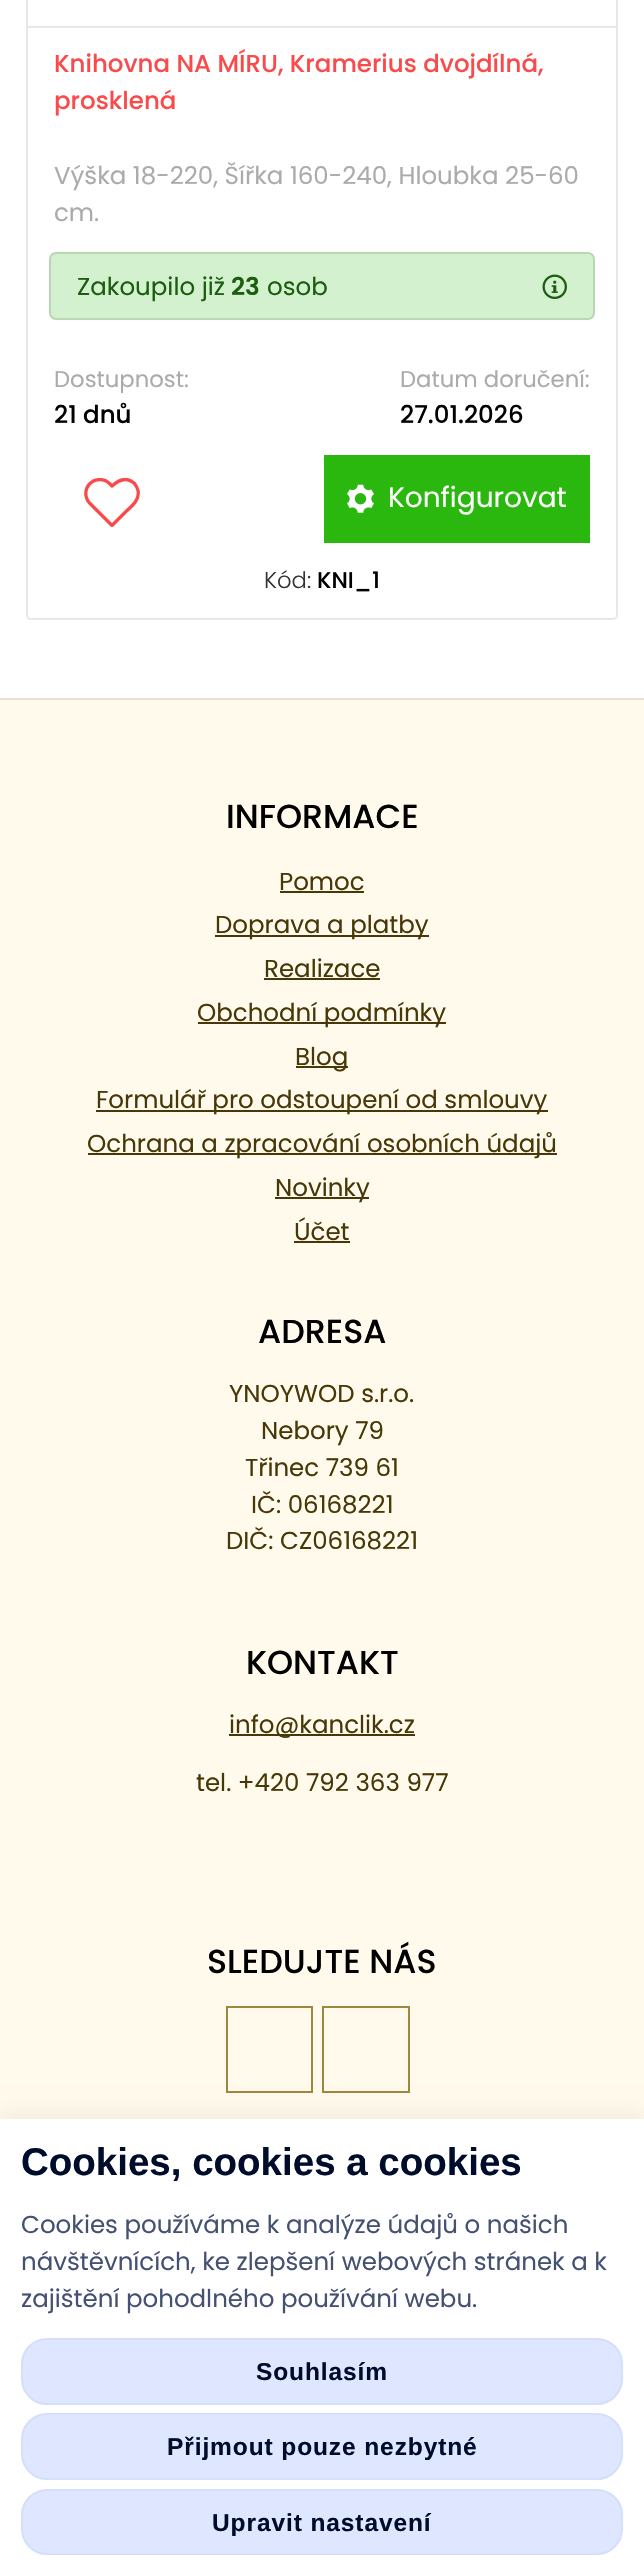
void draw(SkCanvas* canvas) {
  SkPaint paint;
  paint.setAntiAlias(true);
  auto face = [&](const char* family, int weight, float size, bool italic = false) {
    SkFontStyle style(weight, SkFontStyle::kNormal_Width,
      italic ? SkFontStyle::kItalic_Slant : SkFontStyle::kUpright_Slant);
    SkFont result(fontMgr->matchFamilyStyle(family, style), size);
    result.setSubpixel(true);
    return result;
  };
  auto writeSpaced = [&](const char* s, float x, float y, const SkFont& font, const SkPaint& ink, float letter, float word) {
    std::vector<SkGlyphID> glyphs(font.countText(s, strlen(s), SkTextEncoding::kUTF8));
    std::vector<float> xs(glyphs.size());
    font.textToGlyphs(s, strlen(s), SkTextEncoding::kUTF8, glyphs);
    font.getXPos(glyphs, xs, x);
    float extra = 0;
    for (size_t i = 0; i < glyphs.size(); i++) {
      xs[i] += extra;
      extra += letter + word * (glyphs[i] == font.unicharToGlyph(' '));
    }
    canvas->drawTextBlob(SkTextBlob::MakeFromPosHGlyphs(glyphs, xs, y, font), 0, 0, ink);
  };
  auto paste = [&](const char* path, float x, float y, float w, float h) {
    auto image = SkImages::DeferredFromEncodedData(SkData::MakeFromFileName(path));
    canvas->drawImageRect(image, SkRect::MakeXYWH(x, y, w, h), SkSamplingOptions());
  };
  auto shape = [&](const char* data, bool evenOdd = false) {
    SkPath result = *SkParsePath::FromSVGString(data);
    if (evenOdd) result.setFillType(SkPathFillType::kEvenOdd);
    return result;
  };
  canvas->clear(0xffffffff);
  paint.setStroke(true);
  paint.setStrokeWidth(2);
  paint.setColor(0xffe8e8e8);
  canvas->drawRoundRect(SkRect::MakeXYWH(27, -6, 590, 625), 4, 4, paint);
  paint.setStroke(false);
  canvas->drawRect(SkRect::MakeXYWH(28, 26, 588, 2), paint);
  paint.setColor(0xffd3f1ce);
  canvas->drawRoundRect(SkRect::MakeXYWH(50, 253, 544, 66), 6, 6, paint);
  paint.setStroke(true);
  paint.setColor(0xffb9d7b3);
  canvas->drawRoundRect(SkRect::MakeXYWH(50, 253, 544, 66), 6, 6, paint);
  paste("img/1.png", 542, 274, 25, 25);
  canvas->save();
  canvas->clipRect(SkRect::MakeXYWH(84, 478, 56, 49));
  paint.setStrokeWidth(3.3f);
  paint.setStrokeCap(SkPaint::kRound_Cap);
  paint.setStrokeJoin(SkPaint::kRound_Join);
  paint.setColor(0xfff94b4b);
  canvas->drawPath(shape("M134.5 483.5C126.5 476 118.5 480 112 486L109.5 483.5C104 478 95 478.5 90 483.5C84.5 489 84.5 497.5 89.5 503L112 525.5L125 512.5C131 506.5 140 500.5 138 490.5C137.5 488 136 485.5 134.5 483.5Z"), paint);
  canvas->restore();
  paint.setStroke(false);
  paint.setColor(0xff2ab80f);
  canvas->drawRect(SkRect::MakeXYWH(324, 455, 266, 88), paint);
  paste("img/2.png", 347, 484, 27, 29);
  {
    const struct { float x, y, w, h; SkColor color; } items[] = {
      {0, 700, 644, 1419, 0xfffffaeb},
      {0, 698, 644, 2, 0xffe8e2cf},
      {280, 891, 84, 2, 0xff483807},
      {215, 935, 214, 2, 0xff483807},
      {264, 978, 116, 2, 0xff483807},
      {198, 1022, 248, 2, 0xff483807},
      {296, 1066, 52, 2, 0xff483807},
      {96, 1110, 452, 2, 0xff483807},
      {88, 1153, 469, 2, 0xff483807},
      {275, 1197, 94, 2, 0xff483807},
      {294, 1241, 56, 2, 0xff483807},
      {229, 1734, 186, 2, 0xff483807},
    };
    for (auto [x, y, w, h, color] : items) {
      paint.setColor(color);
      canvas->drawRect(SkRect::MakeXYWH(x, y, w, h), paint);
    }
  }
  paint.setStroke(true);
  paint.setStrokeWidth(2);
  paint.setStrokeCap(SkPaint::kButt_Cap);
  paint.setStrokeJoin(SkPaint::kMiter_Join);
  paint.setColor(0xffa0873e);
  canvas->drawRect(SkRect::MakeXYWH(227, 2007, 85, 85), paint);
  canvas->drawRect(SkRect::MakeXYWH(323, 2007, 86, 85), paint);
  paint.setStroke(false);
  paint.setColor(0x0d000000);
  paint.setMaskFilter(SkMaskFilter::MakeBlur(kNormal_SkBlurStyle, 9));
  canvas->drawRect(SkRect::MakeXYWH(0, 2112, 644, 457), paint);
  paint.setMaskFilter(nullptr);
  paint.setColor(0xffffffff);
  canvas->drawRect(SkRect::MakeXYWH(0, 2119, 644, 457), paint);
  paint.setColor(0xffdee7ff);
  canvas->drawRoundRect(SkRect::MakeXYWH(22, 2339, 600, 65), 25, 25, paint);
  paint.setStroke(true);
  paint.setColor(0xffd4dffb);
  canvas->drawRoundRect(SkRect::MakeXYWH(22, 2339, 600, 65), 25, 25, paint);
  paint.setStroke(false);
  paint.setColor(0xffdee7ff);
  canvas->drawRoundRect(SkRect::MakeXYWH(22, 2414, 600, 65), 25, 25, paint);
  paint.setStroke(true);
  paint.setColor(0xffd4dffb);
  canvas->drawRoundRect(SkRect::MakeXYWH(22, 2414, 600, 65), 25, 25, paint);
  paint.setStroke(false);
  paint.setColor(0xffdee7ff);
  canvas->drawRoundRect(SkRect::MakeXYWH(22, 2490, 600, 64), 25, 25, paint);
  paint.setStroke(true);
  paint.setColor(0xffd4dffb);
  canvas->drawRoundRect(SkRect::MakeXYWH(22, 2490, 600, 64), 25, 25, paint);
  auto f0 = face("Poppins", 500, 24.5f);
  paint.setStroke(false);
  paint.setColor(0xfff94b4b);
  canvas->drawString("Knihovna NA MÍRU, Kramerius dvojdílná,", 54, 72, f0, paint);
  canvas->drawString("prosklená", 54, 109, f0, paint);
  auto f1 = face("Poppins", 400, 24.5f);
  paint.setColor(0xffababab);
  canvas->drawString("Výška 18-220, Šířka 160-240, Hloubka 25-60", 54, 184, f1, paint);
  canvas->drawString("cm.", 54, 221, f1, paint);
  paint.setColor(0xff1b5e0f);
  canvas->drawString("Zakoupilo již", 77, 295, f1, paint);
  auto f2 = face("Poppins", 600, 24.5f);
  canvas->drawString("23", 231, 295, f2, paint);
  canvas->drawString("osob", 267, 295, f1, paint);
  auto f3 = face("Poppins", 400, 22.75f);
  paint.setColor(0xffababab);
  canvas->drawString("Dostupnost:", 54, 387, f3, paint);
  paint.setColor(0xff000000);
  canvas->drawString("21 dnů", 54, 423, f0, paint);
  paint.setColor(0xffababab);
  canvas->drawString("Datum doručení:", 400, 387, f3, paint);
  paint.setColor(0xff000000);
  canvas->drawString("27.01.2026", 400, 423, f0, paint);
  auto f4 = face("Poppins", 400, 28);
  paint.setColor(0xffffffff);
  canvas->drawString("Konfigurovat", 388, 507, f4, paint);
  auto f5 = face("Poppins", 300, 22.75f);
  paint.setColor(0xff333333);
  canvas->drawString("Kód:", 264, 588, f5, paint);
  auto f6 = face("Poppins", 500, 22.75f);
  paint.setColor(0xff000000);
  canvas->drawString("KNI_1", 317, 588, f6, paint);
  auto f7 = face("Poppins", 500, 33.25f);
  canvas->drawString("INFORMACE", 226, 828, f7, paint);
  paint.setColor(0xff483807);
  {
    const struct { const char* s; float x, y; } items[] = {
      {"Pomoc", 279, 890},
      {"Doprava a platby", 215, 933},
      {"Realizace", 264, 977},
      {"Obchodní podmínky", 197, 1021},
      {"Blog", 295, 1065},
      {"Formulář pro odstoupení od smlouvy", 96, 1108},
      {"Ochrana a zpracování osobních údajů", 87, 1152},
      {"Novinky", 275, 1196},
      {"Účet", 294, 1240},
    };
    for (auto [s, x, y] : items) {
      canvas->drawString(s, x, y, f1, paint);
    }
  }
  paint.setColor(0xff000000);
  canvas->drawString("ADRESA", 258, 1343, f7, paint);
  paint.setColor(0xff483807);
  {
    const struct { const char* s; float x, y; } items[] = {
      {"YNOYWOD s.r.o.", 229, 1402},
      {"Nebory 79", 261, 1439},
      {"Třinec 739 61", 245, 1476},
      {"IČ: 06168221", 251, 1513},
      {"DIČ: CZ06168221", 226, 1549},
    };
    for (auto [s, x, y] : items) {
      canvas->drawString(s, x, y, f1, paint);
    }
  }
  paint.setColor(0xff000000);
  canvas->drawString("KONTAKT", 246, 1674, f7, paint);
  paint.setColor(0xff483807);
  canvas->drawString("info@kanclik.cz", 229, 1733, f1, paint);
  canvas->drawString("tel. +420 792 363 977", 196, 1791, f1, paint);
  paint.setColor(0xff000000);
  canvas->drawString("SLEDUJTE NÁS", 207, 1973, f7, paint);
  auto f8 = face("Liberation Sans", 700, 38.5f);
  paint.setColor(0xff000c2c);
  canvas->drawString("Cookies, cookies a cookies", 21, 2175, f8, paint);
  paint.setColor(0xff455172);
  {
    const struct { const char* s; float x, y; } items[] = {
      {"Cookies používáme k analýze údajů o našich", 21, 2233},
      {"návštěvnících, ke zlepšení webových stránek a k", 21, 2270},
      {"zajištění pohodlného používání webu.", 21, 2307},
    };
    for (auto [s, x, y] : items) {
      canvas->drawString(s, x, y, f1, paint);
    }
  }
  auto f9 = face("Liberation Sans", 700, 24.5f);
  paint.setColor(0xff000c2c);
  {
    const struct { const char* s; float x, y; } items[] = {
      {"Souhlasím", 256, 2380},
      {"Přijmout pouze nezbytné", 167, 2455},
      {"Upravit nastavení", 212, 2531},
    };
    for (auto [s, x, y] : items) {
      writeSpaced(s, x, y, f9, paint, 0.9f, 0);
    }
  }
}
